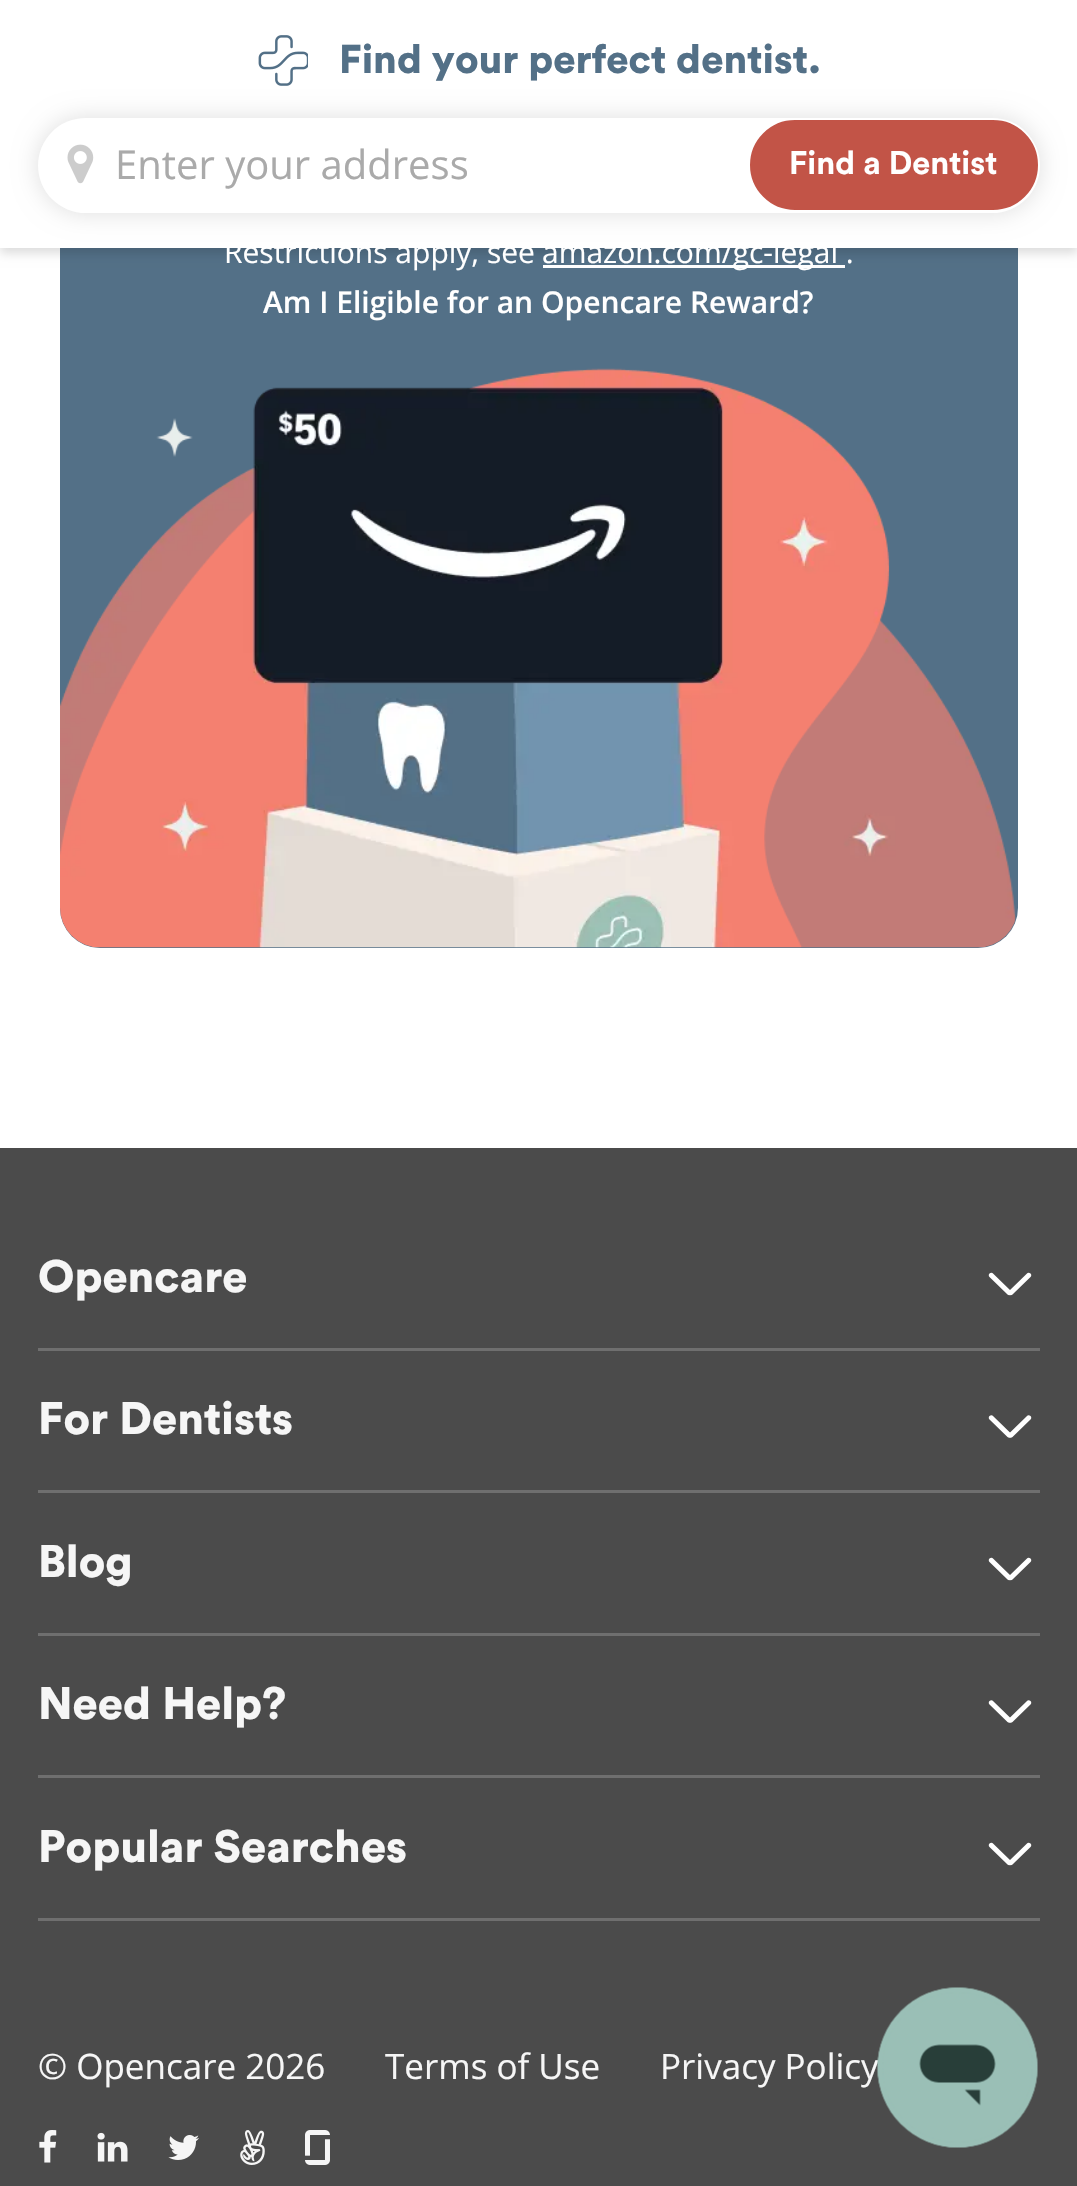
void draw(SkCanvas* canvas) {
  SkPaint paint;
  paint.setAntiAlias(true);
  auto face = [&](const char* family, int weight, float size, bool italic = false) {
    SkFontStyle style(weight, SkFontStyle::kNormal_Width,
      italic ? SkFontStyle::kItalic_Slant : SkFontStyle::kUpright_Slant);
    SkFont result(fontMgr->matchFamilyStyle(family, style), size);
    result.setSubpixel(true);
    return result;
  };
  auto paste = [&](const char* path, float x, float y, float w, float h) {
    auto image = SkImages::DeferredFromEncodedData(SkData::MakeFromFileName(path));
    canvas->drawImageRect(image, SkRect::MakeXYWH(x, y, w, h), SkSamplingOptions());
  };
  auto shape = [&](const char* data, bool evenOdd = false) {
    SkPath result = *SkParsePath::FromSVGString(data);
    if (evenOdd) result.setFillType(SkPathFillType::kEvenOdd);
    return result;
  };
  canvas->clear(0xffffffff);
  paint.setColor(0xff537087);
  canvas->drawRoundRect(SkRect::MakeXYWH(60, -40, 958, 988), 40, 40, paint);
  paint.setColor(0xffffffff);
  canvas->drawRect(SkRect::MakeXYWH(543, 265, 302, 3), paint);
  paint.setColor(0x24000000);
  paint.setMaskFilter(SkMaskFilter::MakeBlur(kNormal_SkBlurStyle, 5));
  canvas->drawRect(SkRect::MakeXYWH(0, 5, 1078, 248), paint);
  paint.setMaskFilter(nullptr);
  paint.setColor(0xffffffff);
  canvas->drawRect(SkRect::MakeXYWH(0, 0, 1077, 248), paint);
  paint.setColor(0xffdedede);
  paint.setMaskFilter(SkMaskFilter::MakeBlur(kNormal_SkBlurStyle, 12.5f));
  canvas->drawRoundRect(SkRect::MakeXYWH(38, 118, 1002, 95), 47.5f, 47.5f, paint);
  paint.setMaskFilter(nullptr);
  paste("img/1.png", 258, 35, 50, 51);
  paint.setColor(0xffffffff);
  canvas->drawRoundRect(SkRect::MakeXYWH(38, 118, 1002, 95), 47.5f, 47.5f, paint);
  paste("img/2.png", 67, 144, 27, 40);
  paint.setColor(0xffc25447);
  canvas->drawRoundRect(SkRect::MakeXYWH(751.5f, 121.5f, 285, 87), 43.5f, 43.5f, paint);
  paint.setStroke(true);
  paint.setStrokeWidth(3);
  canvas->drawRoundRect(SkRect::MakeXYWH(751.5f, 121.5f, 285, 87), 43.5f, 43.5f, paint);
  paste("img/3.png", 60, 368, 956, 580);
  paint.setStroke(false);
  paint.setColor(0xff4b4b4b);
  canvas->drawRect(SkRect::MakeXYWH(0, 1148, 1077, 1038), paint);
  paint.setColor(0xff6f6f6f);
  canvas->drawRect(SkRect::MakeXYWH(38, 1348, 1002, 3), paint);
  paint.setColor(0xffffffff);
  canvas->drawPath(shape("M993 1273.5L1011 1291C1012 1292 1012 1293.5 1011 1294.5C1010 1295.5 1008.5 1295.5 1007.5 1294.5L989.5 1277C988.5 1276 988.5 1274.5 989.5 1273.5C990.5 1272.5 992.5 1272.5 993 1273.5Z"), paint);
  canvas->drawPath(shape("M1009 1291L1027 1273.5C1027.5 1272.5 1029.5 1272.5 1030.5 1273.5C1031.5 1274.5 1031.5 1276 1030.5 1277L1012.5 1294.5C1011.5 1295.5 1010 1295.5 1009 1294.5C1008 1293.5 1008 1292 1009 1291Z"), paint);
  paint.setColor(0xff6f6f6f);
  canvas->drawRect(SkRect::MakeXYWH(38, 1490, 1002, 3), paint);
  paint.setColor(0xffffffff);
  canvas->drawPath(shape("M993 1416L1011 1433.5C1012 1434.5 1012 1436 1011 1437C1010 1438 1008.5 1438 1007.5 1437L989.5 1419.5C988.5 1418.5 988.5 1417 989.5 1416C990.5 1415 992.5 1415 993 1416Z"), paint);
  canvas->drawPath(shape("M1009 1433.5L1027 1416C1027.5 1415 1029.5 1415 1030.5 1416C1031.5 1417 1031.5 1418.5 1030.5 1419.5L1012.5 1437C1011.5 1438 1010 1438 1009 1437C1008 1436 1008 1434.5 1009 1433.5Z"), paint);
  paint.setColor(0xff6f6f6f);
  canvas->drawRect(SkRect::MakeXYWH(38, 1633, 1002, 3), paint);
  paint.setColor(0xffffffff);
  canvas->drawPath(shape("M993 1558.5L1011 1576C1012 1577 1012 1578.5 1011 1579.5C1010 1580.5 1008.5 1580.5 1007.5 1579.5L989.5 1562C988.5 1561 988.5 1559.5 989.5 1558.5C990.5 1557.5 992.5 1557.5 993 1558.5Z"), paint);
  canvas->drawPath(shape("M1009 1576L1027 1558.5C1027.5 1557.5 1029.5 1557.5 1030.5 1558.5C1031.5 1559.5 1031.5 1561 1030.5 1562L1012.5 1579.5C1011.5 1580.5 1010 1580.5 1009 1579.5C1008 1578.5 1008 1577 1009 1576Z"), paint);
  paint.setColor(0xff6f6f6f);
  canvas->drawRect(SkRect::MakeXYWH(38, 1775, 1002, 3), paint);
  paint.setColor(0xffffffff);
  canvas->drawPath(shape("M993 1701L1011 1718.5C1012 1719.5 1012 1721 1011 1722C1010 1723 1008.5 1723 1007.5 1722L989.5 1704.5C988.5 1703.5 988.5 1702 989.5 1701C990.5 1700 992.5 1700 993 1701Z"), paint);
  canvas->drawPath(shape("M1009 1718.5L1027 1701C1027.5 1700 1029.5 1700 1030.5 1701C1031.5 1702 1031.5 1703.5 1030.5 1704.5L1012.5 1722C1011.5 1723 1010 1723 1009 1722C1008 1721 1008 1719.5 1009 1718.5Z"), paint);
  paint.setColor(0xff6f6f6f);
  canvas->drawRect(SkRect::MakeXYWH(38, 1918, 1002, 3), paint);
  paint.setColor(0xffffffff);
  canvas->drawPath(shape("M993 1843.5L1011 1861C1012 1862 1012 1863.5 1011 1864.5C1010 1865.5 1008.5 1865.5 1007.5 1864.5L989.5 1847C988.5 1846 988.5 1844.5 989.5 1843.5C990.5 1842.5 992.5 1842.5 993 1843.5Z"), paint);
  canvas->drawPath(shape("M1009 1861L1027 1843.5C1027.5 1842.5 1029.5 1842.5 1030.5 1843.5C1031.5 1844.5 1031.5 1846 1030.5 1847L1012.5 1864.5C1011.5 1865.5 1010 1865.5 1009 1864.5C1008 1863.5 1008 1862 1009 1861Z"), paint);
  paste("img/4.png", 39, 2130, 18, 33);
  paste("img/5.png", 97, 2132, 31, 30);
  paste("img/6.png", 168, 2135, 31, 25);
  paste("img/7.png", 240, 2130, 25, 35);
  paste("img/8.png", 305, 2130, 25, 35);
  auto f0 = face("Circular", 900, 40);
  paint.setColor(0xff537087);
  canvas->drawString("Find your perfect dentist.", 339, 73, f0, paint);
  auto f1 = face("Open Sans", 400, 40);
  paint.setColor(0xffaaaaaa);
  canvas->drawString("Enter your address", 115, 179, f1, paint);
  auto f2 = face("Circular", 700, 32.5f);
  paint.setColor(0xffffffff);
  canvas->drawString("Find a Dentist", 789, 174, f2, paint);
  auto f3 = face("Open Sans", 400, 30);
  canvas->drawString("Restrictions apply, see", 224, 263, f3, paint);
  canvas->drawString("amazon.com/gc-legal .", 542, 263, f3, paint);
  auto f4 = face("Open Sans", 600, 30);
  canvas->drawString("Am I Eligible for an Opencare Reward?", 263, 313, f4, paint);
  auto f5 = face("Circular", 900, 45);
  paint.setColor(0xfff6f6f6);
  {
    const struct { const char* s; float x, y; } items[] = {
      {"Opencare", 38, 1292},
      {"For Dentists", 38, 1434},
      {"Blog", 38, 1577},
      {"Need Help?", 38, 1719},
      {"Popular Searches", 38, 1862},
    };
    for (auto [s, x, y] : items) {
      canvas->drawString(s, x, y, f5, paint);
    }
  }
  auto f6 = face("Open Sans", 400, 35);
  {
    const struct { const char* s; float x, y; } items[] = {
      {"© Opencare 2026", 38, 2079},
      {"Terms of Use", 385, 2079},
      {"Privacy Policy", 660, 2079},
    };
    for (auto [s, x, y] : items) {
      canvas->drawString(s, x, y, f6, paint);
    }
  }
  paste("img/9.png", 877, 1987, 161, 161);
}
